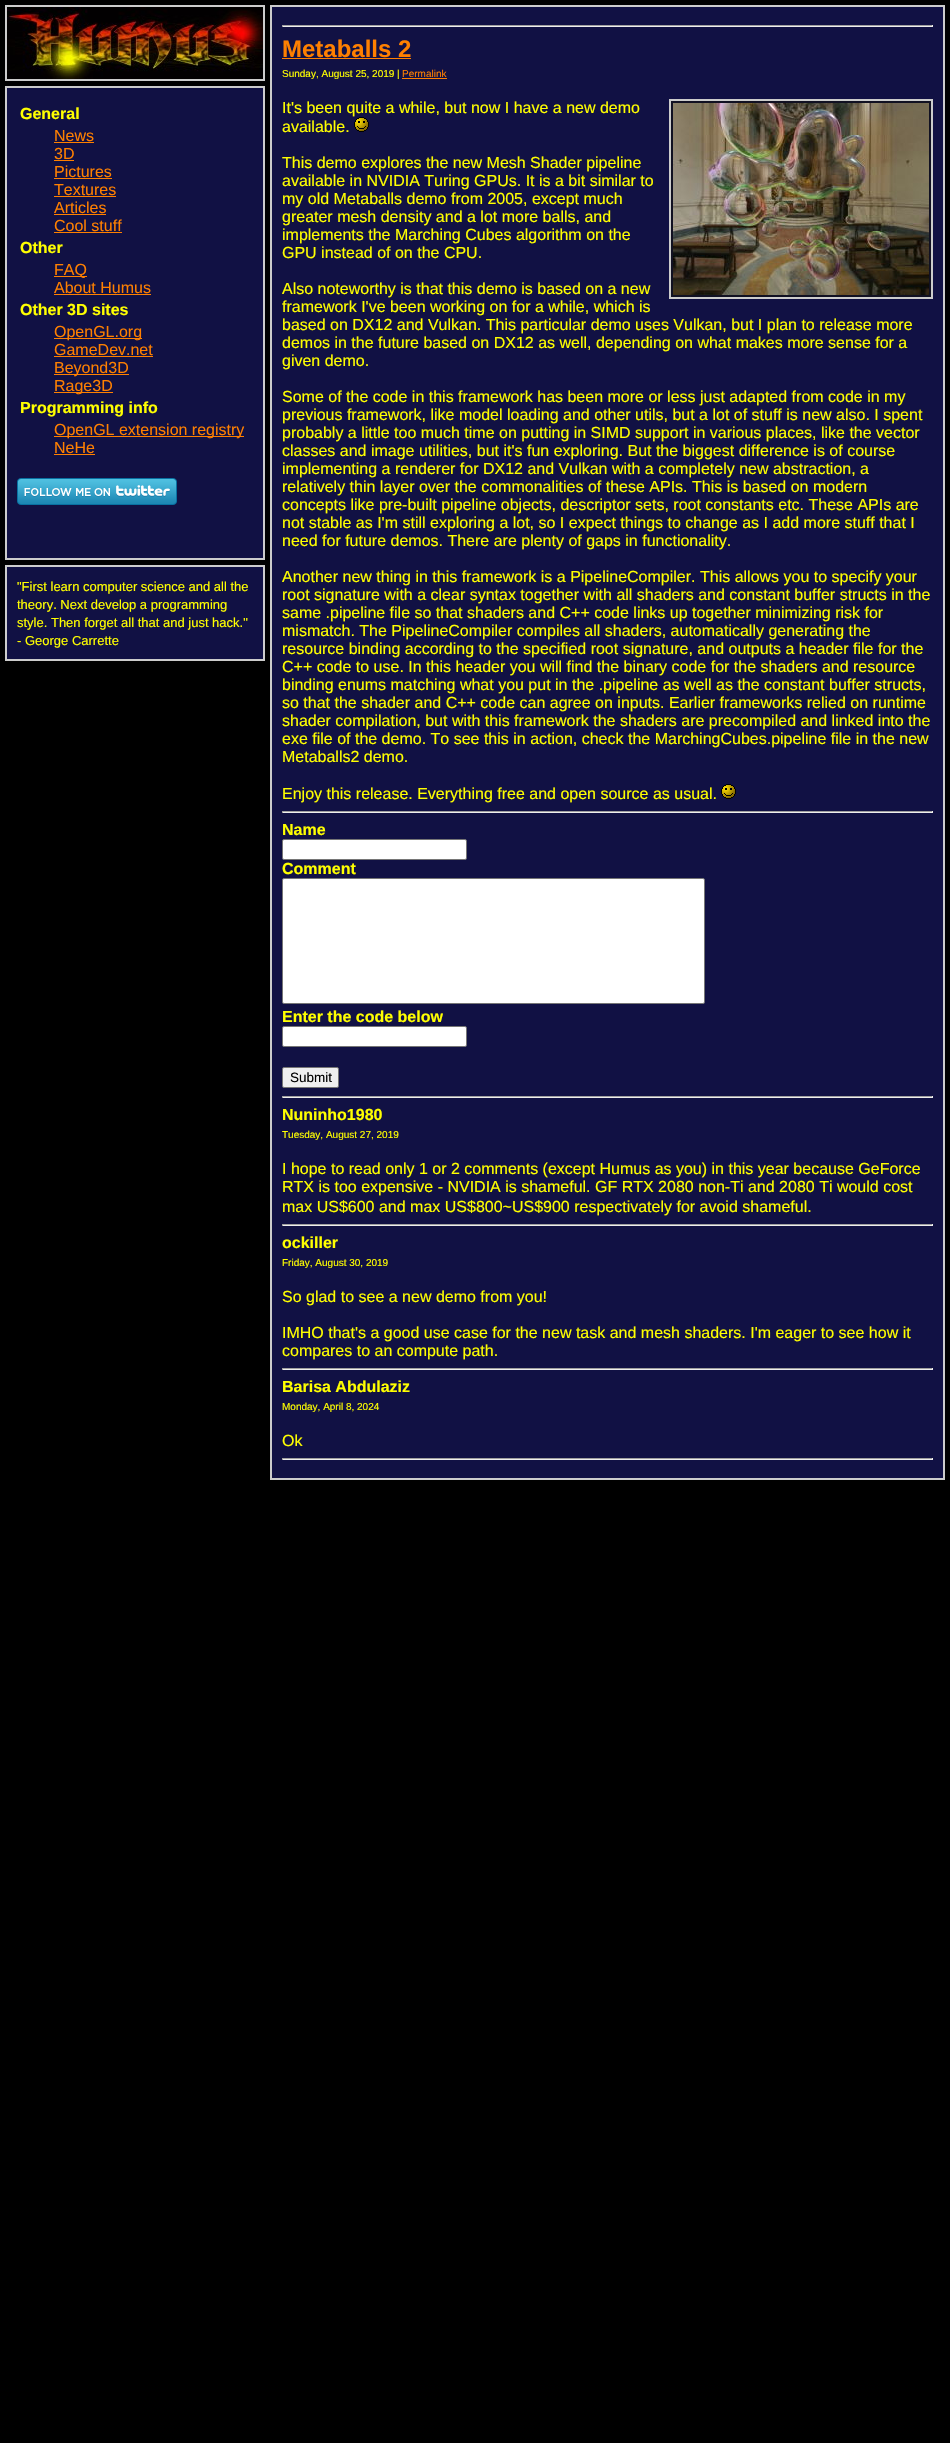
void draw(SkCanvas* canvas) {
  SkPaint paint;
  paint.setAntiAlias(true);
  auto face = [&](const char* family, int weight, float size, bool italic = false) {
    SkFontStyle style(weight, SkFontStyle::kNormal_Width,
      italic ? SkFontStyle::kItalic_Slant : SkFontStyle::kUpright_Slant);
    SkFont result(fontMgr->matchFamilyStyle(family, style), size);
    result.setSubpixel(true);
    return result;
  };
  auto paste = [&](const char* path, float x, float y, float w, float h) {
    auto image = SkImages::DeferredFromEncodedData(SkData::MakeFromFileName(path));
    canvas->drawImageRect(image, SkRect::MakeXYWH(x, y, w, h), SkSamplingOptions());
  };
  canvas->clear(0xff000000);
  paint.setStroke(true);
  paint.setStrokeWidth(2);
  paint.setColor(0xffcccccc);
  canvas->drawRect(SkRect::MakeXYWH(6, 6, 258, 74), paint);
  paste("img/1.png", 7, 7, 256, 72);
  paint.setStroke(false);
  paint.setColor(0xff111144);
  canvas->drawRect(SkRect::MakeXYWH(271, 6, 673, 1473), paint);
  paint.setStroke(true);
  paint.setColor(0xffcccccc);
  canvas->drawRect(SkRect::MakeXYWH(271, 6, 673, 1473), paint);
  paint.setStroke(false);
  {
    const struct { float x, y, w, h; SkColor color; } items[] = {
      {282, 25, 651, 1, 0xff9f9f9f},
      {932, 25, 1, 2, 0xffeeeeee},
      {282, 26, 651, 1, 0xffeeeeee},
      {282, 25, 1, 2, 0xff9f9f9f},
      {282, 58, 129, 1, 0xffff8000},
      {402, 78, 45, 1, 0xffff8000},
    };
    for (auto [x, y, w, h, color] : items) {
      paint.setColor(color);
      canvas->drawRect(SkRect::MakeXYWH(x, y, w, h), paint);
    }
  }
  paint.setColor(0xff111122);
  canvas->drawRect(SkRect::MakeXYWH(670, 100, 262, 198), paint);
  paint.setStroke(true);
  paint.setColor(0xffcccccc);
  canvas->drawRect(SkRect::MakeXYWH(670, 100, 262, 198), paint);
  paste("img/2.png", 673, 103, 256, 192);
  paste("img/3.png", 354, 117, 15, 15);
  paste("img/3.png", 721, 784, 15, 15);
  paint.setStroke(false);
  {
    const struct { float x, y, w, h; SkColor color; } items[] = {
      {282, 811, 651, 1, 0xff9f9f9f},
      {932, 811, 1, 2, 0xffeeeeee},
      {282, 812, 651, 1, 0xffeeeeee},
      {282, 811, 1, 2, 0xff9f9f9f},
    };
    for (auto [x, y, w, h, color] : items) {
      paint.setColor(color);
      canvas->drawRect(SkRect::MakeXYWH(x, y, w, h), paint);
    }
  }
  paint.setColor(0xffffffff);
  canvas->drawRoundRect(SkRect::MakeXYWH(282.5f, 839.5f, 184, 20), 1.5f, 1.5f, paint);
  paint.setStroke(true);
  paint.setStrokeWidth(1);
  paint.setColor(0xff767676);
  canvas->drawRoundRect(SkRect::MakeXYWH(282.5f, 839.5f, 184, 20), 1.5f, 1.5f, paint);
  paint.setStroke(false);
  paint.setColor(0xffffffff);
  canvas->drawRoundRect(SkRect::MakeXYWH(282.5f, 878.5f, 422, 125), 1.5f, 1.5f, paint);
  paint.setStroke(true);
  paint.setColor(0xff767676);
  canvas->drawRoundRect(SkRect::MakeXYWH(282.5f, 878.5f, 422, 125), 1.5f, 1.5f, paint);
  paint.setStroke(false);
  paint.setColor(0xffffffff);
  canvas->drawRoundRect(SkRect::MakeXYWH(282.5f, 1026.5f, 184, 20), 1.5f, 1.5f, paint);
  paint.setStroke(true);
  paint.setColor(0xff767676);
  canvas->drawRoundRect(SkRect::MakeXYWH(282.5f, 1026.5f, 184, 20), 1.5f, 1.5f, paint);
  paint.setStroke(false);
  paint.setColor(0xffefefef);
  canvas->drawRoundRect(SkRect::MakeXYWH(282.5f, 1067.5f, 56, 20), 1.5f, 1.5f, paint);
  paint.setStroke(true);
  paint.setColor(0xff767676);
  canvas->drawRoundRect(SkRect::MakeXYWH(282.5f, 1067.5f, 56, 20), 1.5f, 1.5f, paint);
  paint.setStroke(false);
  {
    const struct { float x, y, w, h; SkColor color; } items[] = {
      {282, 1096, 651, 1, 0xff9f9f9f},
      {932, 1096, 1, 2, 0xffeeeeee},
      {282, 1097, 651, 1, 0xffeeeeee},
      {282, 1096, 1, 2, 0xff9f9f9f},
      {282, 1224, 651, 1, 0xff9f9f9f},
      {932, 1224, 1, 2, 0xffeeeeee},
      {282, 1225, 651, 1, 0xffeeeeee},
      {282, 1224, 1, 2, 0xff9f9f9f},
      {282, 1368, 651, 1, 0xff9f9f9f},
      {932, 1368, 1, 2, 0xffeeeeee},
      {282, 1369, 651, 1, 0xffeeeeee},
      {282, 1368, 1, 2, 0xff9f9f9f},
      {282, 1458, 651, 1, 0xff9f9f9f},
      {932, 1458, 1, 2, 0xffeeeeee},
      {282, 1459, 651, 1, 0xffeeeeee},
      {282, 1458, 1, 2, 0xff9f9f9f},
    };
    for (auto [x, y, w, h, color] : items) {
      paint.setColor(color);
      canvas->drawRect(SkRect::MakeXYWH(x, y, w, h), paint);
    }
  }
  paint.setColor(0xff111144);
  canvas->drawRect(SkRect::MakeXYWH(6, 87, 258, 472), paint);
  paint.setStroke(true);
  paint.setStrokeWidth(2);
  paint.setColor(0xffcccccc);
  canvas->drawRect(SkRect::MakeXYWH(6, 87, 258, 472), paint);
  paint.setStroke(false);
  {
    const struct { float x, y, w, h; SkColor color; } items[] = {
      {54, 142, 40, 1, 0xffff8000},
      {54, 160, 20, 1, 0xffff8000},
      {54, 178, 58, 1, 0xffff8000},
      {54, 196, 62, 1, 0xffff8000},
      {54, 214, 52, 1, 0xffff8000},
      {54, 232, 68, 1, 0xffff8000},
      {54, 276, 33, 1, 0xffff8000},
      {54, 294, 97, 1, 0xffff8000},
      {54, 338, 88, 1, 0xffff8000},
      {54, 356, 99, 1, 0xffff8000},
      {54, 374, 75, 1, 0xffff8000},
      {54, 392, 59, 1, 0xffff8000},
      {54, 436, 190, 1, 0xffff8000},
      {54, 454, 41, 1, 0xffff8000},
    };
    for (auto [x, y, w, h, color] : items) {
      paint.setColor(color);
      canvas->drawRect(SkRect::MakeXYWH(x, y, w, h), paint);
    }
  }
  paste("img/4.png", 17, 478, 160, 27);
  paint.setColor(0xff111144);
  canvas->drawRect(SkRect::MakeXYWH(6, 566, 258, 94), paint);
  paint.setStroke(true);
  paint.setColor(0xffcccccc);
  canvas->drawRect(SkRect::MakeXYWH(6, 566, 258, 94), paint);
  auto f0 = face("Liberation Sans", 700, 24);
  paint.setStroke(false);
  paint.setColor(0xffff8000);
  canvas->drawString("Metaballs 2", 282, 57, f0, paint);
  auto f1 = face("Liberation Sans", 400, 10);
  paint.setColor(0xffffff00);
  canvas->drawString("Sunday, August 25, 2019 |", 282, 77, f1, paint);
  paint.setColor(0xffff8000);
  canvas->drawString("Permalink", 402, 77, f1, paint);
  auto f2 = face("Liberation Sans", 400, 16);
  paint.setColor(0xffffff00);
  {
    const struct { const char* s; float x, y; } items[] = {
      {"It's been quite a while, but now I have a new demo", 282, 113},
      {"available.", 282, 132},
      {"This demo explores the new Mesh Shader pipeline", 282, 168},
      {"available in NVIDIA Turing GPUs. It is a bit similar to", 282, 186},
      {"my old Metaballs demo from 2005, except much", 282, 204},
      {"greater mesh density and a lot more balls, and", 282, 222},
      {"implements the Marching Cubes algorithm on the", 282, 240},
      {"GPU instead of on the CPU.", 282, 258},
      {"Also noteworthy is that this demo is based on a new", 282, 294},
      {"framework I've been working on for a while, which is", 282, 312},
      {"based on DX12 and Vulkan. This particular demo uses Vulkan, but I plan to release more", 282, 330},
      {"demos in the future based on DX12 as well, depending on what makes more sense for a", 282, 348},
      {"given demo.", 282, 366},
      {"Some of the code in this framework has been more or less just adapted from code in my", 282, 402},
      {"previous framework, like model loading and other utils, but a lot of stuff is new also. I spent", 282, 420},
      {"probably a little too much time on putting in SIMD support in various places, like the vector", 282, 438},
      {"classes and image utilities, but it's fun exploring. But the biggest difference is of course", 282, 456},
      {"implementing a renderer for DX12 and Vulkan with a completely new abstraction, a", 282, 474},
      {"relatively thin layer over the commonalities of these APIs. This is based on modern", 282, 492},
      {"concepts like pre-built pipeline objects, descriptor sets, root constants etc. These APIs are", 282, 510},
      {"not stable as I'm still exploring a lot, so I expect things to change as I add more stuff that I", 282, 528},
      {"need for future demos. There are plenty of gaps in functionality.", 282, 546},
      {"Another new thing in this framework is a PipelineCompiler. This allows you to specify your", 282, 582},
      {"root signature with a clear syntax together with all shaders and constant buffer structs in the", 282, 600},
      {"same .pipeline file so that shaders and C++ code links up together minimizing risk for", 282, 618},
      {"mismatch. The PipelineCompiler compiles all shaders, automatically generating the", 282, 636},
      {"resource binding according to the specified root signature, and outputs a header file for the", 282, 654},
      {"C++ code to use. In this header you will find the binary code for the shaders and resource", 282, 672},
      {"binding enums matching what you put in the .pipeline as well as the constant buffer structs,", 282, 690},
      {"so that the shader and C++ code can agree on inputs. Earlier frameworks relied on runtime", 282, 708},
      {"shader compilation, but with this framework the shaders are precompiled and linked into the", 282, 726},
      {"exe file of the demo. To see this in action, check the MarchingCubes.pipeline file in the new", 282, 744},
      {"Metaballs2 demo.", 282, 762},
      {"Enjoy this release. Everything free and open source as usual.", 282, 799},
    };
    for (auto [s, x, y] : items) {
      canvas->drawString(s, x, y, f2, paint);
    }
  }
  auto f3 = face("Liberation Sans", 700, 16);
  {
    const struct { const char* s; float x, y; } items[] = {
      {"Name", 282, 835},
      {"Comment", 282, 874},
      {"Enter the code below", 282, 1022},
    };
    for (auto [s, x, y] : items) {
      canvas->drawString(s, x, y, f3, paint);
    }
  }
  auto f4 = face("Liberation Sans", 400, 13.5f);
  paint.setColor(0xff000000);
  canvas->drawString("Submit", 290, 1082, f4, paint);
  paint.setColor(0xffffff00);
  canvas->drawString("Nuninho1980", 282, 1120, f3, paint);
  canvas->drawString("Tuesday, August 27, 2019", 282, 1138, f1, paint);
  {
    const struct { const char* s; float x, y; } items[] = {
      {"I hope to read only 1 or 2 comments (except Humus as you) in this year because GeForce", 282, 1174},
      {"RTX is too expensive - NVIDIA is shameful. GF RTX 2080 non-Ti and 2080 Ti would cost", 282, 1192},
      {"max US$600 and max US$800~US$900 respectivately for avoid shameful.", 282, 1212},
    };
    for (auto [s, x, y] : items) {
      canvas->drawString(s, x, y, f2, paint);
    }
  }
  canvas->drawString("ockiller", 282, 1248, f3, paint);
  canvas->drawString("Friday, August 30, 2019", 282, 1266, f1, paint);
  {
    const struct { const char* s; float x, y; } items[] = {
      {"So glad to see a new demo from you!", 282, 1302},
      {"IMHO that's a good use case for the new task and mesh shaders. I'm eager to see how it", 282, 1338},
      {"compares to an compute path.", 282, 1356},
    };
    for (auto [s, x, y] : items) {
      canvas->drawString(s, x, y, f2, paint);
    }
  }
  canvas->drawString("Barisa Abdulaziz", 282, 1392, f3, paint);
  canvas->drawString("Monday, April 8, 2024", 282, 1410, f1, paint);
  canvas->drawString("Ok", 282, 1446, f2, paint);
  canvas->drawString("General", 20, 119, f3, paint);
  paint.setColor(0xffff8000);
  {
    const struct { const char* s; float x, y; } items[] = {
      {"News", 54, 141},
      {"3D", 54, 159},
      {"Pictures", 54, 177},
      {"Textures", 54, 195},
      {"Articles", 54, 213},
      {"Cool stuff", 54, 231},
    };
    for (auto [s, x, y] : items) {
      canvas->drawString(s, x, y, f2, paint);
    }
  }
  paint.setColor(0xffffff00);
  canvas->drawString("Other", 20, 253, f3, paint);
  paint.setColor(0xffff8000);
  canvas->drawString("FAQ", 54, 275, f2, paint);
  canvas->drawString("About Humus", 54, 293, f2, paint);
  paint.setColor(0xffffff00);
  canvas->drawString("Other 3D sites", 20, 315, f3, paint);
  paint.setColor(0xffff8000);
  {
    const struct { const char* s; float x, y; } items[] = {
      {"OpenGL.org", 54, 337},
      {"GameDev.net", 54, 355},
      {"Beyond3D", 54, 373},
      {"Rage3D", 54, 391},
    };
    for (auto [s, x, y] : items) {
      canvas->drawString(s, x, y, f2, paint);
    }
  }
  paint.setColor(0xffffff00);
  canvas->drawString("Programming info", 20, 413, f3, paint);
  paint.setColor(0xffff8000);
  canvas->drawString("OpenGL extension registry", 54, 435, f2, paint);
  canvas->drawString("NeHe", 54, 453, f2, paint);
  auto f5 = face("Liberation Sans", 400, 13);
  paint.setColor(0xffffff00);
  {
    const struct { const char* s; float x, y; } items[] = {
      {"\"First learn computer science and all the", 17, 591},
      {"theory. Next develop a programming", 17, 609},
      {"style. Then forget all that and just hack.\"", 17, 627},
      {"- George Carrette", 17, 645},
    };
    for (auto [s, x, y] : items) {
      canvas->drawString(s, x, y, f5, paint);
    }
  }
}
